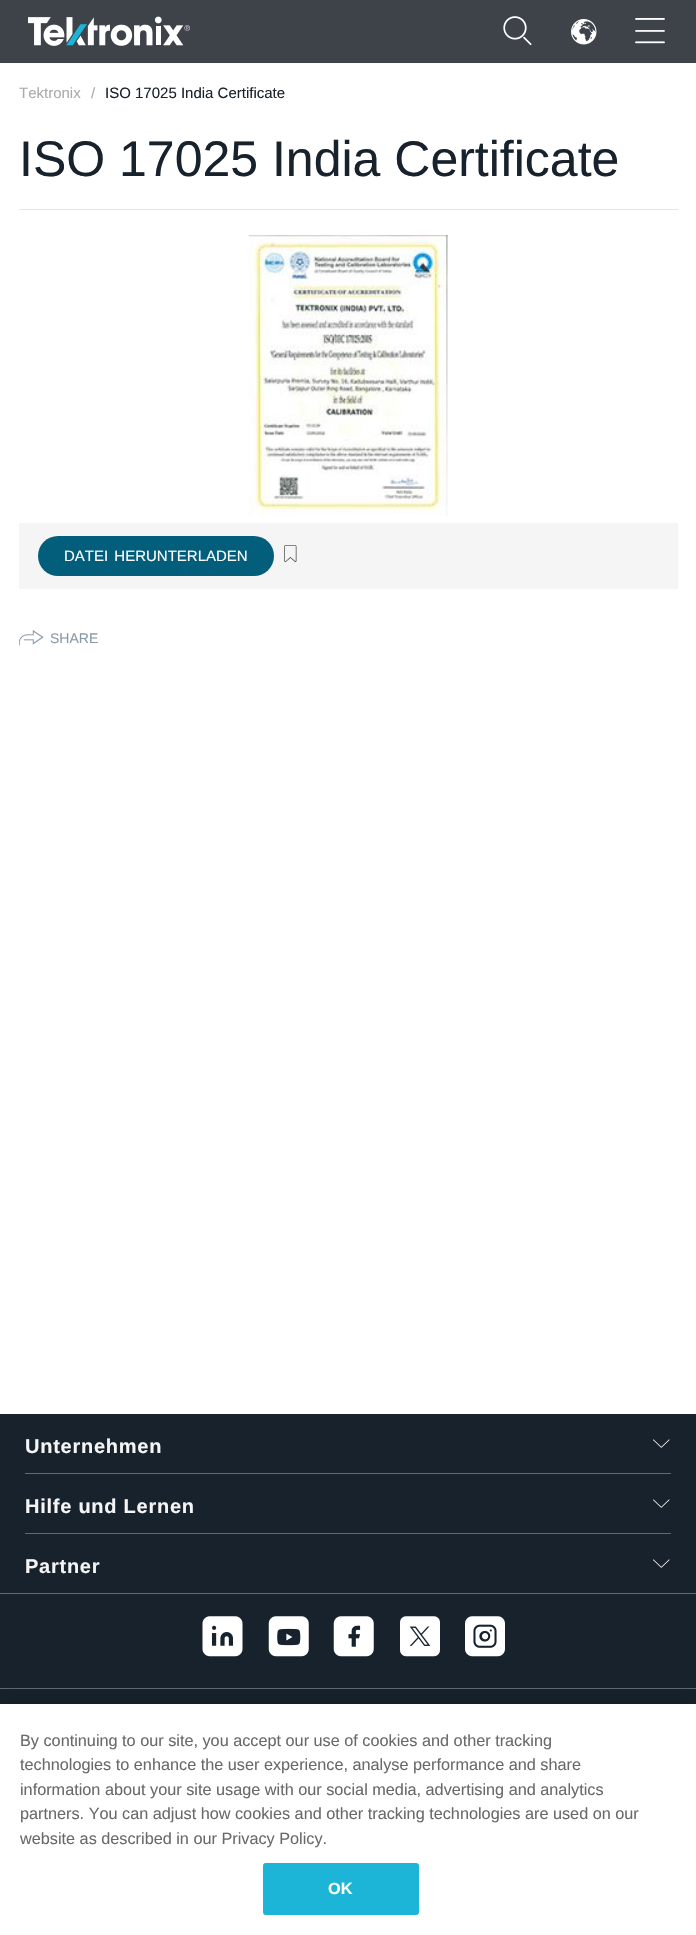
void draw(SkCanvas* canvas) {
  SkPaint paint;
  paint.setAntiAlias(true);
  auto face = [&](const char* family, int weight, float size, bool italic = false) {
    SkFontStyle style(weight, SkFontStyle::kNormal_Width,
      italic ? SkFontStyle::kItalic_Slant : SkFontStyle::kUpright_Slant);
    SkFont result(fontMgr->matchFamilyStyle(family, style), size);
    result.setSubpixel(true);
    return result;
  };
  auto writeSpaced = [&](const char* s, float x, float y, const SkFont& font, const SkPaint& ink, float letter, float word) {
    std::vector<SkGlyphID> glyphs(font.countText(s, strlen(s), SkTextEncoding::kUTF8));
    std::vector<float> xs(glyphs.size());
    font.textToGlyphs(s, strlen(s), SkTextEncoding::kUTF8, glyphs);
    font.getXPos(glyphs, xs, x);
    float extra = 0;
    for (size_t i = 0; i < glyphs.size(); i++) {
      xs[i] += extra;
      extra += letter + word * (glyphs[i] == font.unicharToGlyph(' '));
    }
    canvas->drawTextBlob(SkTextBlob::MakeFromPosHGlyphs(glyphs, xs, y, font), 0, 0, ink);
  };
  auto paste = [&](const char* path, float x, float y, float w, float h) {
    auto image = SkImages::DeferredFromEncodedData(SkData::MakeFromFileName(path));
    canvas->drawImageRect(image, SkRect::MakeXYWH(x, y, w, h), SkSamplingOptions());
  };
  canvas->clear(0xffffffff);
  paint.setColor(0xff3e434a);
  canvas->drawRect(SkRect::MakeXYWH(0, 0, 696, 63), paint);
  paste("img/1.png", 28, 16, 162, 30);
  paste("img/2.png", 503, 16, 29, 30);
  paste("img/3.png", 571, 19, 26, 26);
  paste("img/4.png", 635, 18, 30, 26);
  paint.setColor(0xffe5e5e5);
  canvas->drawRect(SkRect::MakeXYWH(19, 209, 659, 1), paint);
  paste("img/5.png", 248, 235, 200, 281);
  paint.setColor(0xfff5f5f5);
  canvas->drawRect(SkRect::MakeXYWH(19, 523, 659, 66), paint);
  paint.setColor(0xff035e7c);
  canvas->drawRoundRect(SkRect::MakeXYWH(38, 536, 236, 40), 20, 20, paint);
  paste("img/6.png", 284, 545, 13, 17);
  paste("img/7.png", 19, 630, 25, 16);
  paint.setColor(0xff17222c);
  canvas->drawRect(SkRect::MakeXYWH(0, 1414, 696, 274), paint);
  paste("img/8.png", 653, 1439, 17, 9);
  paint.setColor(0xff5e6975);
  canvas->drawRect(SkRect::MakeXYWH(25, 1473, 646, 1), paint);
  paste("img/8.png", 653, 1499, 17, 9);
  canvas->drawRect(SkRect::MakeXYWH(25, 1533, 646, 1), paint);
  paste("img/8.png", 653, 1559, 17, 9);
  canvas->drawRect(SkRect::MakeXYWH(0, 1593, 696, 1), paint);
  paste("img/9.png", 202, 1616, 41, 41);
  paste("img/10.png", 268, 1616, 41, 41);
  paste("img/11.png", 333, 1616, 41, 41);
  paste("img/12.png", 400, 1616, 40, 41);
  paste("img/13.png", 465, 1616, 40, 41);
  paint.setColor(0xff17222c);
  canvas->drawRect(SkRect::MakeXYWH(0, 1689, 696, 15), paint);
  paint.setColor(0xff5e6975);
  canvas->drawRect(SkRect::MakeXYWH(0, 1688, 696, 1), paint);
  paint.setColor(0x33000000);
  paint.setMaskFilter(SkMaskFilter::MakeBlur(kNormal_SkBlurStyle, 11));
  canvas->drawRect(SkRect::MakeXYWH(0, 1704, 696, 231), paint);
  paint.setMaskFilter(nullptr);
  paint.setColor(0xffffffff);
  canvas->drawRect(SkRect::MakeXYWH(0, 1704, 696, 231), paint);
  paint.setColor(0xff1cb5d8);
  canvas->drawRoundRect(SkRect::MakeXYWH(263.5f, 1863.5f, 155, 51), 2, 2, paint);
  paint.setStroke(true);
  paint.setStrokeWidth(1);
  canvas->drawRoundRect(SkRect::MakeXYWH(263.5f, 1863.5f, 155, 51), 2, 2, paint);
  auto f0 = face("Liberation Sans", 400, 15);
  paint.setStroke(false);
  paint.setColor(0xffababab);
  canvas->drawString("Tektronix", 19, 98, f0, paint);
  canvas->drawString("/", 91, 98, f0, paint);
  paint.setColor(0xff17222c);
  canvas->drawString("ISO 17025 India Certificate", 105, 98, f0, paint);
  auto f1 = face("Liberation Sans", 400, 50);
  canvas->drawString("ISO 17025 India Certificate", 19, 176, f1, paint);
  paint.setColor(0xffffffff);
  writeSpaced("DATEI HERUNTERLADEN", 64, 561, f0, paint, 0, 2);
  auto f2 = face("Liberation Sans", 400, 14);
  paint.setColor(0xff8899a8);
  canvas->drawString("SHARE", 50, 643, f2, paint);
  auto f3 = face("Liberation Sans", 700, 20);
  paint.setColor(0xfff5f5f5);
  {
    const struct { const char* s; float x, y; } items[] = {
      {"Unternehmen", 25, 1453},
      {"Hilfe und Lernen", 25, 1513},
      {"Partner", 25, 1573},
    };
    for (auto [s, x, y] : items) {
      writeSpaced(s, x, y, f3, paint, 0.75f, 0);
    }
  }
  auto f4 = face("Liberation Sans", 400, 16.25f);
  paint.setColor(0xff696969);
  {
    const struct { const char* s; float x, y; } items[] = {
      {"By continuing to our site, you accept our use of cookies and other tracking", 20, 1746},
      {"technologies to enhance the user experience, analyse performance and share", 20, 1770},
      {"information about your site usage with our social media, advertising and analytics", 20, 1795},
      {"partners. You can adjust how cookies and other tracking technologies are used on our", 20, 1819},
      {"website as described in our Privacy Policy.", 20, 1844},
    };
    for (auto [s, x, y] : items) {
      canvas->drawString(s, x, y, f4, paint);
    }
  }
  auto f5 = face("Liberation Sans", 700, 16.25f);
  paint.setColor(0xffffffff);
  canvas->drawString("OK", 328, 1894, f5, paint);
}
